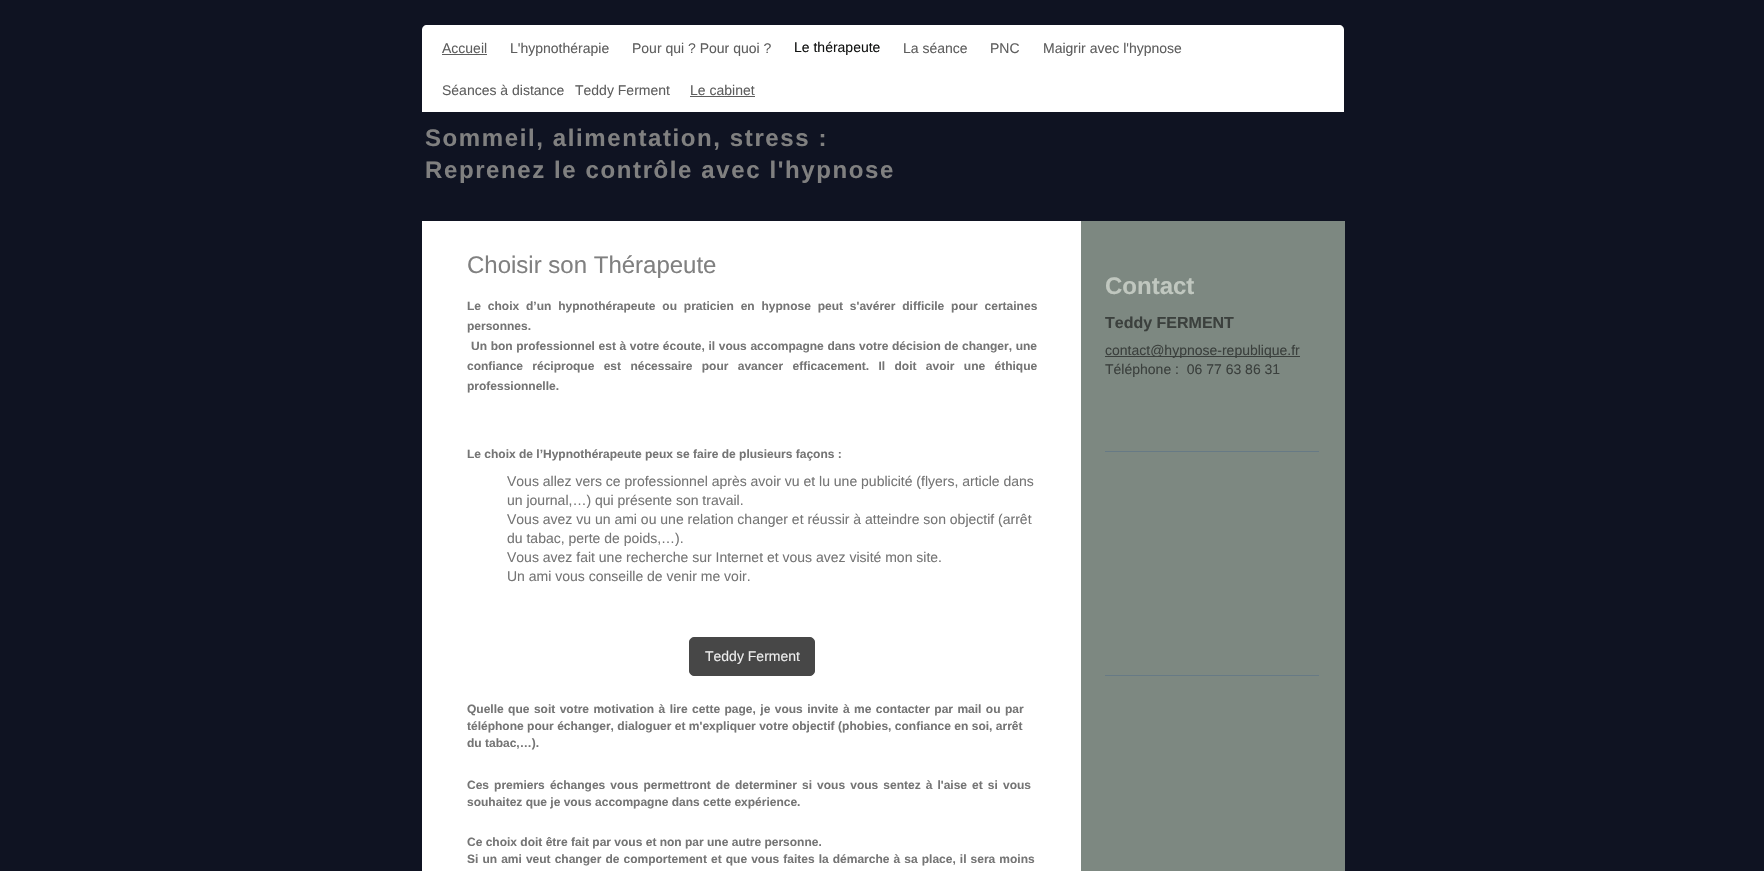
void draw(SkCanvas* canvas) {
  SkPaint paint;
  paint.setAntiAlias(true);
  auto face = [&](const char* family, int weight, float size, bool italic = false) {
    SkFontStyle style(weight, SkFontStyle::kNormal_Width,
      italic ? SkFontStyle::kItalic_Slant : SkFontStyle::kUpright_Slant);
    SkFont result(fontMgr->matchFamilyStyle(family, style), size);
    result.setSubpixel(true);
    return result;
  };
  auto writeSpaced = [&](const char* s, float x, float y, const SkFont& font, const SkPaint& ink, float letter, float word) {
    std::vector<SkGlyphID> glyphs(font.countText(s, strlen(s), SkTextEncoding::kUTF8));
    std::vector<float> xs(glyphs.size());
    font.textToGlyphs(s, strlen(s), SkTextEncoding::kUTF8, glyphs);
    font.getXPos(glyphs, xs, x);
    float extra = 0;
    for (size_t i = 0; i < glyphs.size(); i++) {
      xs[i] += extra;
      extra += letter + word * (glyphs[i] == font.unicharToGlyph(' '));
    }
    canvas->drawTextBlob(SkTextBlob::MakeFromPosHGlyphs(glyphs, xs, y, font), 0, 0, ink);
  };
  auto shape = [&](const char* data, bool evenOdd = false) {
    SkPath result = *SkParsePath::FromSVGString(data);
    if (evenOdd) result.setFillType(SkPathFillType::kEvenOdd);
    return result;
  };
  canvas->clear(0xff0f1322);
  paint.setColor(0xffffffff);
  canvas->drawPath(shape("M427 25H1339C1342 25 1344 27 1344 30V112H422V30C422 27 424 25 427 25Z"), paint);
  {
    const struct { float x, y, w, h; SkColor color; } items[] = {
      {442, 54, 45, 1, 0xff5e5e5e},
      {690, 96, 65, 1, 0xff5e5e5e},
      {1081, 221, 264, 650, 0xff7d8881},
      {422, 221, 659, 650, 0xffffffff},
    };
    for (auto [x, y, w, h, color] : items) {
      paint.setColor(color);
      canvas->drawRect(SkRect::MakeXYWH(x, y, w, h), paint);
    }
  }
  paint.setColor(0xff474747);
  canvas->drawRoundRect(SkRect::MakeXYWH(689.5f, 637.5f, 125, 38), 4.5f, 4.5f, paint);
  paint.setStroke(true);
  paint.setStrokeWidth(1);
  canvas->drawRoundRect(SkRect::MakeXYWH(689.5f, 637.5f, 125, 38), 4.5f, 4.5f, paint);
  paint.setStroke(false);
  {
    const struct { float x, y, w, h; SkColor color; } items[] = {
      {1105, 356, 195, 1, 0xff3b403d},
      {1105, 451, 214, 1, 0xff677a85},
      {1105, 675, 214, 1, 0xff677a85},
    };
    for (auto [x, y, w, h, color] : items) {
      paint.setColor(color);
      canvas->drawRect(SkRect::MakeXYWH(x, y, w, h), paint);
    }
  }
  auto f0 = face("Liberation Sans", 400, 14);
  paint.setColor(0xff5e5e5e);
  {
    const struct { const char* s; float x, y; } items[] = {
      {"Accueil", 442, 53},
      {"L'hypnothérapie", 510, 53},
      {"Pour qui ? Pour quoi ?", 632, 53},
    };
    for (auto [s, x, y] : items) {
      canvas->drawString(s, x, y, f0, paint);
    }
  }
  paint.setColor(0xff131413);
  canvas->drawString("Le thérapeute", 794, 52, f0, paint);
  paint.setColor(0xff5e5e5e);
  {
    const struct { const char* s; float x, y; } items[] = {
      {"La séance", 903, 53},
      {"PNC", 990, 53},
      {"Maigrir avec l'hypnose", 1043, 53},
      {"Séances à distance", 442, 95},
      {"Teddy Ferment", 575, 95},
      {"Le cabinet", 690, 95},
    };
    for (auto [s, x, y] : items) {
      canvas->drawString(s, x, y, f0, paint);
    }
  }
  auto f1 = face("Liberation Sans", 700, 24);
  paint.setColor(0xff808080);
  writeSpaced("Sommeil, alimentation, stress :", 425, 146, f1, paint, 1.6f, 0);
  writeSpaced("Reprenez le contrôle avec l'hypnose", 425, 178, f1, paint, 1.6f, 0);
  auto f2 = face("Liberation Sans", 400, 24);
  canvas->drawString("Choisir son Thérapeute", 467, 273, f2, paint);
  auto f3 = face("Liberation Sans", 700, 12);
  paint.setColor(0xff757575);
  writeSpaced("Le choix d’un hypnothérapeute ou praticien en hypnose peut s'avérer difficile pour certaines", 467, 310, f3, paint, 0, 3.5f);
  canvas->drawString("personnes.", 467, 330, f3, paint);
  writeSpaced("Un bon professionnel est à votre écoute, il vous accompagne dans votre décision de changer, une", 471, 350, f3, paint, 0, 0.3f);
  writeSpaced("confiance réciproque est nécessaire pour avancer efficacement. Il doit avoir une éthique", 467, 370, f3, paint, 0, 6);
  canvas->drawString("professionnelle.", 467, 390, f3, paint);
  canvas->drawString("Le choix de l’Hypnothérapeute peux se faire de plusieurs façons :", 467, 458, f3, paint);
  {
    const struct { const char* s; float x, y; } items[] = {
      {"Vous allez vers ce professionnel après avoir vu et lu une publicité (flyers, article dans", 507, 486},
      {"un journal,…) qui présente son travail.", 507, 505},
      {"Vous avez vu un ami ou une relation changer et réussir à atteindre son objectif (arrêt", 507, 524},
      {"du tabac, perte de poids,…).", 507, 543},
      {"Vous avez fait une recherche sur Internet et vous avez visité mon site.", 507, 562},
      {"Un ami vous conseille de venir me voir.", 507, 581},
    };
    for (auto [s, x, y] : items) {
      canvas->drawString(s, x, y, f0, paint);
    }
  }
  paint.setColor(0xffededed);
  canvas->drawString("Teddy Ferment", 705, 661, f0, paint);
  paint.setColor(0xff757575);
  writeSpaced("Quelle que soit votre motivation à lire cette page, je vous invite à me contacter par mail ou par", 467, 713, f3, paint, 0, 1.1f);
  writeSpaced("téléphone pour échanger, dialoguer et m'expliquer votre objectif (phobies, confiance en soi, arrêt", 467, 730, f3, paint, 0, 0.1f);
  canvas->drawString("du tabac,…).", 467, 747, f3, paint);
  writeSpaced("Ces premiers échanges vous permettront de determiner si vous vous sentez à l'aise et si vous", 467, 789, f3, paint, 0, 1.75f);
  canvas->drawString("souhaitez que je vous accompagne dans cette expérience.", 467, 806, f3, paint);
  canvas->drawString("Ce choix doit être fait par vous et non par une autre personne.", 467, 846, f3, paint);
  writeSpaced("Si un ami veut changer de comportement et que vous faites la démarche à sa place, il sera moins", 467, 863, f3, paint, 0, 0.75f);
  paint.setColor(0xffc0c7bf);
  canvas->drawString("Contact", 1105, 294, f1, paint);
  auto f4 = face("Liberation Sans", 700, 16);
  paint.setColor(0xff3b403d);
  canvas->drawString("Teddy FERMENT", 1105, 328, f4, paint);
  canvas->drawString("contact@hypnose-republique.fr", 1105, 355, f0, paint);
  canvas->drawString("Téléphone :  06 77 63 86 31", 1105, 374, f0, paint);
}
